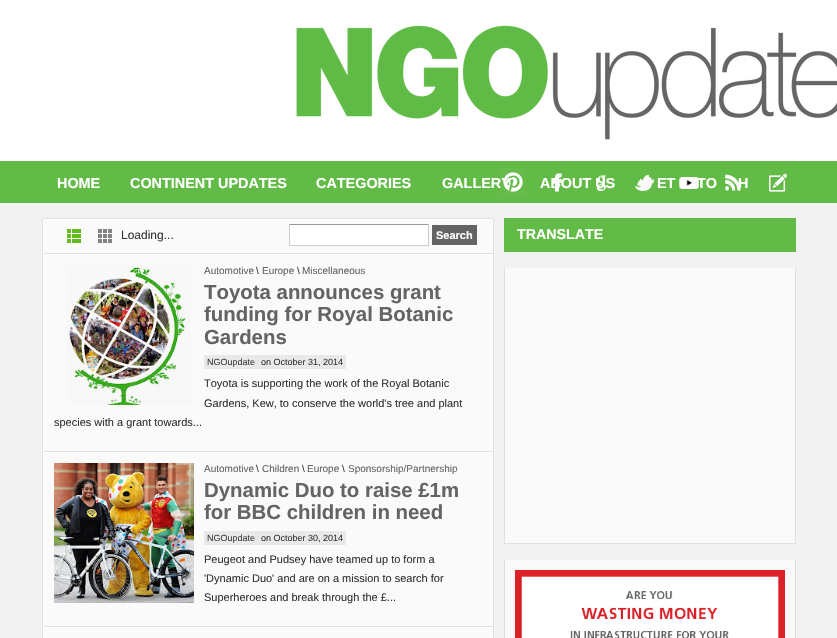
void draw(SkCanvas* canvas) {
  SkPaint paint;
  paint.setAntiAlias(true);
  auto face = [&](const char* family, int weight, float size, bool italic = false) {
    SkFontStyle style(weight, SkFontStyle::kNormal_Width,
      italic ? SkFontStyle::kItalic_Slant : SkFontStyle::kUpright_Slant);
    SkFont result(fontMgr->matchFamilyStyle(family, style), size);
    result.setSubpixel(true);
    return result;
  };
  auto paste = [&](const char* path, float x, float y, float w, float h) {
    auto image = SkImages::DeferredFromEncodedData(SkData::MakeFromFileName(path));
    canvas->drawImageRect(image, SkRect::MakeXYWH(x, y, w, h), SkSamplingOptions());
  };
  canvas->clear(0xfff2f2f2);
  paint.setColor(0xffffffff);
  canvas->drawRect(SkRect::MakeXYWH(0, 0, 837, 161), paint);
  paste("img/1.png", 296, 25, 541, 115);
  paint.setColor(0xff62bb46);
  canvas->drawRect(SkRect::MakeXYWH(0, 161, 837, 42), paint);
  paste("img/2.png", 500, 168, 26, 28);
  paste("img/3.png", 553, 173, 9, 19);
  paste("img/4.png", 596, 175, 10, 16);
  paste("img/5.png", 635, 175, 20, 16);
  paste("img/6.png", 679, 177, 20, 12);
  paste("img/7.png", 725, 174, 16, 17);
  paste("img/8.png", 769, 173, 18, 19);
  paint.setColor(0xfffafafa);
  canvas->drawRect(SkRect::MakeXYWH(44, 220, 448, 418), paint);
  paint.setStroke(true);
  paint.setStrokeWidth(1);
  paint.setColor(0xffe0e0e0);
  canvas->drawRect(SkRect::MakeXYWH(42.5f, 218.5f, 451, 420), paint);
  paint.setStroke(false);
  {
    const struct { float x, y, w, h; SkColor color; } items[] = {
      {43, 219, 450, 1, 0xffffffff},
      {492, 219, 1, 35, 0xffffffff},
      {43, 253, 450, 1, 0xffe0e0e0},
      {43, 219, 1, 35, 0xffffffff},
    };
    for (auto [x, y, w, h, color] : items) {
      paint.setColor(color);
      canvas->drawRect(SkRect::MakeXYWH(x, y, w, h), paint);
    }
  }
  paste("img/9.png", 67, 229, 14, 14);
  paste("img/10.png", 98, 229, 14, 14);
  {
    const struct { float x, y, w, h; SkColor color; } items[] = {
      {290, 225, 138, 20, 0xffffffff},
      {289, 224, 140, 1, 0xff999999},
      {428, 224, 1, 22, 0xffcccccc},
      {289, 245, 140, 1, 0xffcccccc},
      {289, 224, 1, 22, 0xffcccccc},
      {432, 225, 45, 20, 0xff636466},
      {43, 254, 450, 1, 0xffffffff},
      {492, 254, 1, 198, 0xffffffff},
      {43, 451, 450, 1, 0xffe0e0e0},
      {43, 254, 1, 198, 0xffffffff},
    };
    for (auto [x, y, w, h, color] : items) {
      paint.setColor(color);
      canvas->drawRect(SkRect::MakeXYWH(x, y, w, h), paint);
    }
  }
  paste("img/11.png", 66, 265, 125, 140);
  {
    const struct { float x, y, w, h; SkColor color; } items[] = {
      {204, 355, 142, 14, 0xffe9e9e9},
      {43, 452, 450, 1, 0xffffffff},
      {492, 452, 1, 175, 0xffffffff},
      {43, 626, 450, 1, 0xffe0e0e0},
      {43, 452, 1, 175, 0xffffffff},
    };
    for (auto [x, y, w, h, color] : items) {
      paint.setColor(color);
      canvas->drawRect(SkRect::MakeXYWH(x, y, w, h), paint);
    }
  }
  paste("img/12.png", 54, 463, 140, 140);
  {
    const struct { float x, y, w, h; SkColor color; } items[] = {
      {204, 531, 142, 14, 0xffe9e9e9},
      {43, 627, 450, 1, 0xffffffff},
      {492, 627, 1, 11, 0xffffffff},
      {43, 627, 1, 11, 0xffffffff},
      {504, 218, 292, 34, 0xff62bb46},
      {505, 268, 290, 275, 0xfffafafa},
      {795, 268, 1, 276, 0xffe0e0e0},
      {504, 543, 292, 1, 0xffe0e0e0},
      {504, 268, 1, 276, 0xffe0e0e0},
      {505, 560, 290, 78, 0xfffafafa},
      {795, 560, 1, 78, 0xffe0e0e0},
      {504, 560, 1, 78, 0xffe0e0e0},
    };
    for (auto [x, y, w, h, color] : items) {
      paint.setColor(color);
      canvas->drawRect(SkRect::MakeXYWH(x, y, w, h), paint);
    }
  }
  paste("img/13.png", 515, 570, 270, 68);
  auto f0 = face("Liberation Sans", 700, 14.4f);
  paint.setColor(0xffffffff);
  {
    const struct { const char* s; float x, y; } items[] = {
      {"HOME", 57, 188},
      {"CONTINENT UPDATES", 130, 188},
      {"CATEGORIES", 316, 188},
      {"GALLERY", 442, 188},
      {"ABOUT US", 540, 188},
      {"ET", 657, 188},
      {"TO", 697, 188},
      {"H", 738, 188},
    };
    for (auto [s, x, y] : items) {
      canvas->drawString(s, x, y, f0, paint);
    }
  }
  auto f1 = face("Liberation Sans", 400, 12);
  paint.setColor(0xff333333);
  canvas->drawString("Loading...", 121, 239, f1, paint);
  auto f2 = face("Liberation Sans", 700, 11);
  paint.setColor(0xffffffff);
  canvas->drawString("Search", 436, 239, f2, paint);
  auto f3 = face("Liberation Sans", 400, 10);
  paint.setColor(0xff636466);
  canvas->drawString("Automotive", 204, 274, f3, paint);
  paint.setColor(0xff333333);
  canvas->drawString("\\", 256, 274, f3, paint);
  paint.setColor(0xff636466);
  canvas->drawString("Europe", 262, 274, f3, paint);
  paint.setColor(0xff333333);
  canvas->drawString("\\", 297, 274, f3, paint);
  paint.setColor(0xff636466);
  canvas->drawString("Miscellaneous", 302, 274, f3, paint);
  canvas->save();
  canvas->clipRect(SkRect::MakeXYWH(204, 281, 278, 67));
  auto f4 = face("Liberation Sans", 700, 20.4f);
  canvas->drawString("Toyota announces grant", 204, 299, f4, paint);
  canvas->restore();
  canvas->drawString("funding for Royal Botanic", 204, 321, f4, paint);
  canvas->drawString("Gardens", 204, 344, f4, paint);
  auto f5 = face("Liberation Sans", 400, 9);
  paint.setColor(0xff3f3f3f);
  canvas->drawString("NGOupdate", 207, 365, f5, paint);
  paint.setColor(0xff333333);
  canvas->drawString("on October 31, 2014", 261, 365, f5, paint);
  auto f6 = face("Liberation Sans", 400, 11);
  {
    const struct { const char* s; float x, y; } items[] = {
      {"Toyota is supporting the work of the Royal Botanic", 204, 387},
      {"Gardens, Kew, to conserve the world's tree and plant", 204, 407},
      {"species with a grant towards...", 54, 426},
    };
    for (auto [s, x, y] : items) {
      canvas->drawString(s, x, y, f6, paint);
    }
  }
  paint.setColor(0xff636466);
  canvas->drawString("Automotive", 204, 472, f3, paint);
  paint.setColor(0xff333333);
  canvas->drawString("\\", 256, 472, f3, paint);
  paint.setColor(0xff636466);
  canvas->drawString("Children", 262, 472, f3, paint);
  paint.setColor(0xff333333);
  canvas->drawString("\\", 302, 472, f3, paint);
  paint.setColor(0xff636466);
  canvas->drawString("Europe", 307, 472, f3, paint);
  paint.setColor(0xff333333);
  canvas->drawString("\\", 342, 472, f3, paint);
  paint.setColor(0xff636466);
  canvas->drawString("Sponsorship/Partnership", 348, 472, f3, paint);
  canvas->drawString("Dynamic Duo to raise £1m", 204, 497, f4, paint);
  canvas->drawString("for BBC children in need", 204, 519, f4, paint);
  paint.setColor(0xff3f3f3f);
  canvas->drawString("NGOupdate", 207, 541, f5, paint);
  paint.setColor(0xff333333);
  canvas->drawString("on October 30, 2014", 261, 541, f5, paint);
  {
    const struct { const char* s; float x, y; } items[] = {
      {"Peugeot and Pudsey have teamed up to form a", 204, 563},
      {"'Dynamic Duo' and are on a mission to search for", 204, 582},
      {"Superheroes and break through the £...", 204, 601},
    };
    for (auto [s, x, y] : items) {
      canvas->drawString(s, x, y, f6, paint);
    }
  }
  auto f7 = face("Liberation Sans", 700, 14.25f);
  paint.setColor(0xffffffff);
  canvas->drawString("TRANSLATE", 517, 239, f7, paint);
}
